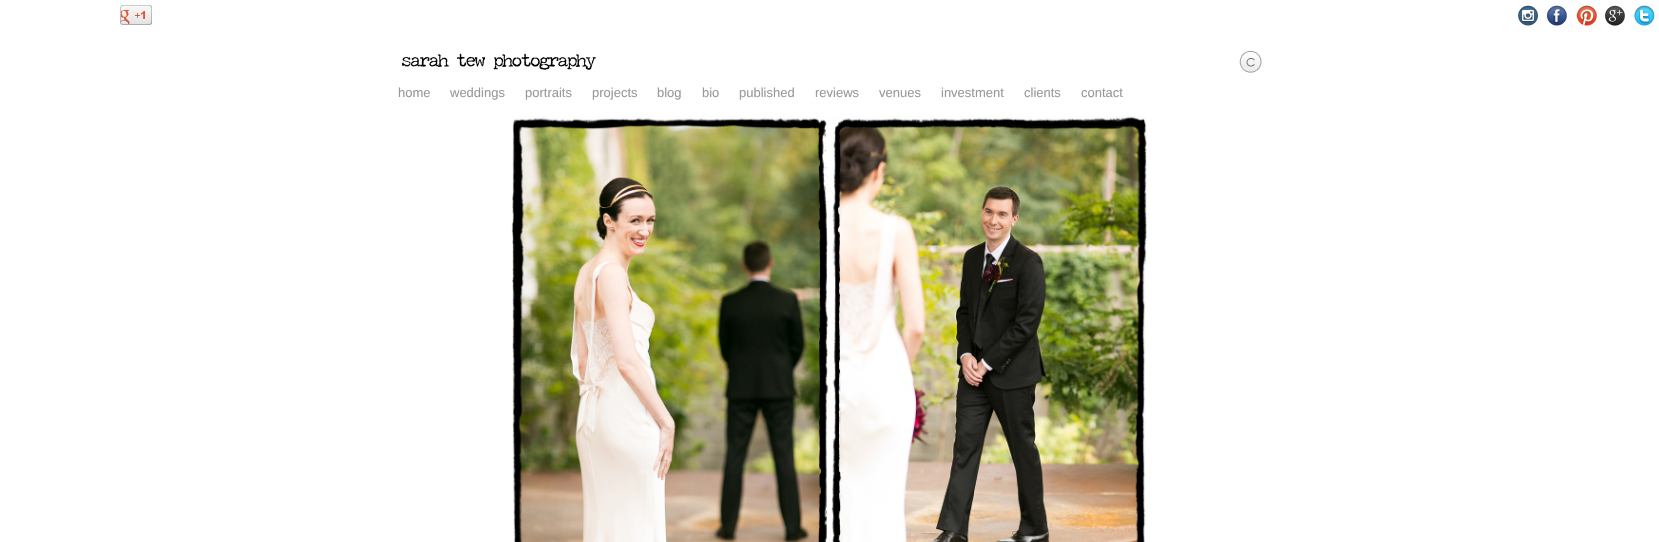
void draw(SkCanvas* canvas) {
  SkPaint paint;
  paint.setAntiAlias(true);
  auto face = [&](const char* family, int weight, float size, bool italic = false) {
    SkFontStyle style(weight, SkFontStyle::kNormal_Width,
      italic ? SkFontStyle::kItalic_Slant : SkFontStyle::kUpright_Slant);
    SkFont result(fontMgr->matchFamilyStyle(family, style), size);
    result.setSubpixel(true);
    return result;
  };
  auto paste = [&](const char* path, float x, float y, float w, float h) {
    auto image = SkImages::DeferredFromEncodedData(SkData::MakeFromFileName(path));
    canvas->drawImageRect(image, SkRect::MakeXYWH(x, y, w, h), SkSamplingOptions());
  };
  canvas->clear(0xffffffff);
  paste("img/1.png", 120, 5, 32, 20);
  paste("img/2.png", 1518, 5, 20, 21);
  paste("img/3.png", 1547, 5, 20, 21);
  paste("img/4.png", 1576, 5, 21, 21);
  paste("img/5.png", 1605, 5, 20, 21);
  paste("img/6.png", 1634, 5, 21, 21);
  paste("img/7.png", 402, 53, 194, 17);
  paste("img/8.png", 1239, 50, 23, 23);
  paste("img/9.png", 511, 116, 636, 426);
  auto f0 = face("Liberation Sans", 400, 13);
  paint.setColor(0xff999999);
  {
    const struct { const char* s; float x, y; } items[] = {
      {"home", 398, 97},
      {"weddings", 450, 97},
      {"portraits", 525, 97},
      {"projects", 592, 97},
      {"blog", 657, 97},
      {"bio", 702, 97},
      {"published", 739, 97},
      {"reviews", 815, 97},
      {"venues", 879, 97},
      {"investment", 941, 97},
      {"clients", 1024, 97},
      {"contact", 1081, 97},
    };
    for (auto [s, x, y] : items) {
      canvas->drawString(s, x, y, f0, paint);
    }
  }
}
